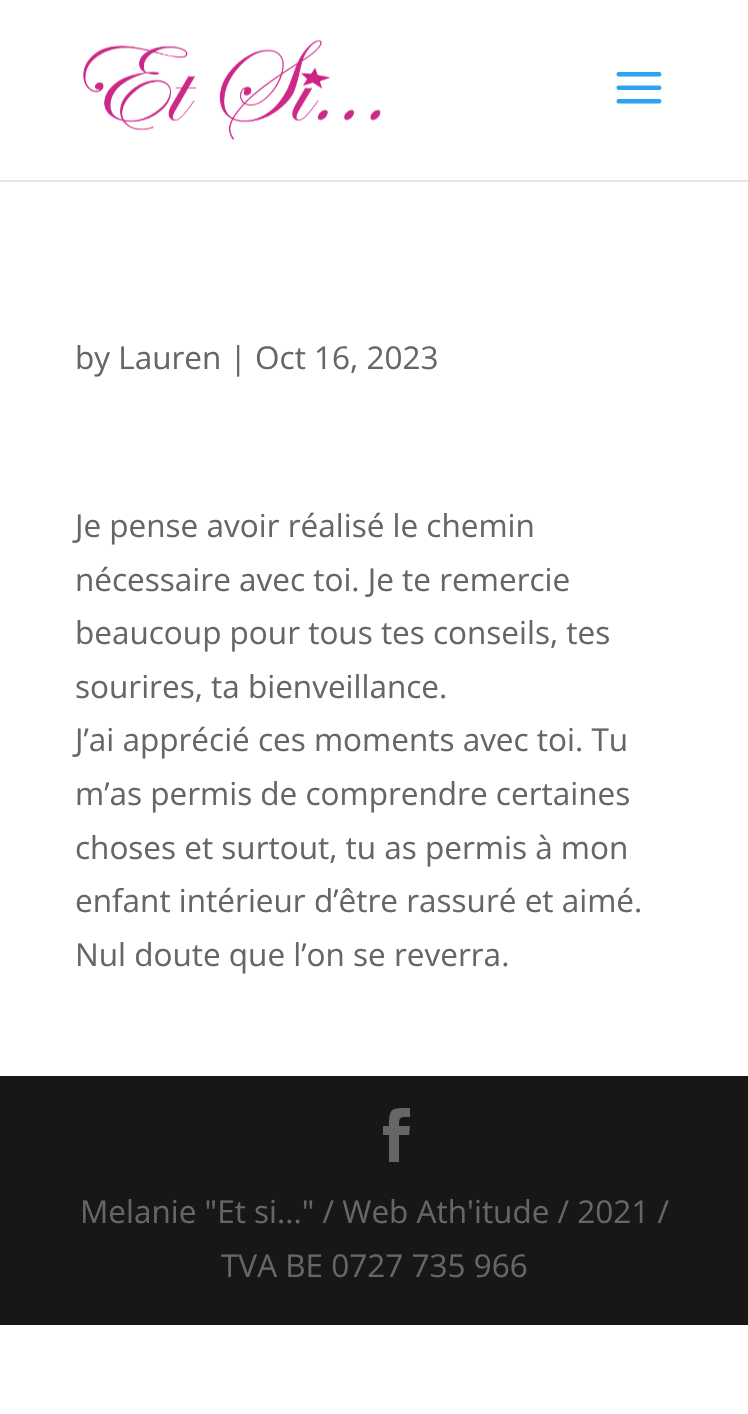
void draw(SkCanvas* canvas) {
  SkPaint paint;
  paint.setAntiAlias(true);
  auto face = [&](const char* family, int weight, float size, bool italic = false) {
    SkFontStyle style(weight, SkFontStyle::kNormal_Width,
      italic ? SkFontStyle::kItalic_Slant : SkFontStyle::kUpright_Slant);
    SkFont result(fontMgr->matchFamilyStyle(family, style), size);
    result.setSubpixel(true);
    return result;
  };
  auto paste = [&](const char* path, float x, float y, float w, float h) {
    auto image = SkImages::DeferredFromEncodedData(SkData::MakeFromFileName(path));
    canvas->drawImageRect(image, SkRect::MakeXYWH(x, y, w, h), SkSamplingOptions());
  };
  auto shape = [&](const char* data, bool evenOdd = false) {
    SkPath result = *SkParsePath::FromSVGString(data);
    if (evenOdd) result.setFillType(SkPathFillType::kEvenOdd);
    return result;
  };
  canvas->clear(0xffffffff);
  paint.setColor(0xffe6e6e6);
  canvas->drawRect(SkRect::MakeXYWH(0, 180, 748, 2), paint);
  paste("img/1.png", 83, 40, 298, 100);
  paste("img/2.png", 616, 72, 46, 32);
  paint.setColor(0xff171717);
  canvas->drawRect(SkRect::MakeXYWH(0, 1076, 748, 249), paint);
  paint.setColor(0xff666666);
  canvas->drawPath(shape("M389 1162H399V1135H409L410 1126H399C399 1116 400 1117 410 1117V1108C392 1108 389 1107 389 1126H383V1135H389Z"), paint);
  auto f0 = face("Open Sans", 400, 31.5f);
  {
    const struct { const char* s; float x, y; } items[] = {
      {"by Lauren | Oct 16, 2023", 75, 369},
      {"Je pense avoir réalisé le chemin", 75, 537},
      {"nécessaire avec toi. Je te remercie", 75, 591},
      {"beaucoup pour tous tes conseils, tes", 75, 644},
      {"sourires, ta bienveillance.", 75, 698},
      {"J’ai apprécié ces moments avec toi. Tu", 75, 751},
      {"m’as permis de comprendre certaines", 75, 805},
      {"choses et surtout, tu as permis à mon", 75, 859},
      {"enfant intérieur d’être rassuré et aimé.", 75, 912},
      {"Nul doute que l’on se reverra.", 75, 966},
      {"Melanie \"Et si...\" / Web Ath'itude / 2021 /", 80, 1223},
      {"TVA BE 0727 735 966", 221, 1277},
    };
    for (auto [s, x, y] : items) {
      canvas->drawString(s, x, y, f0, paint);
    }
  }
}
